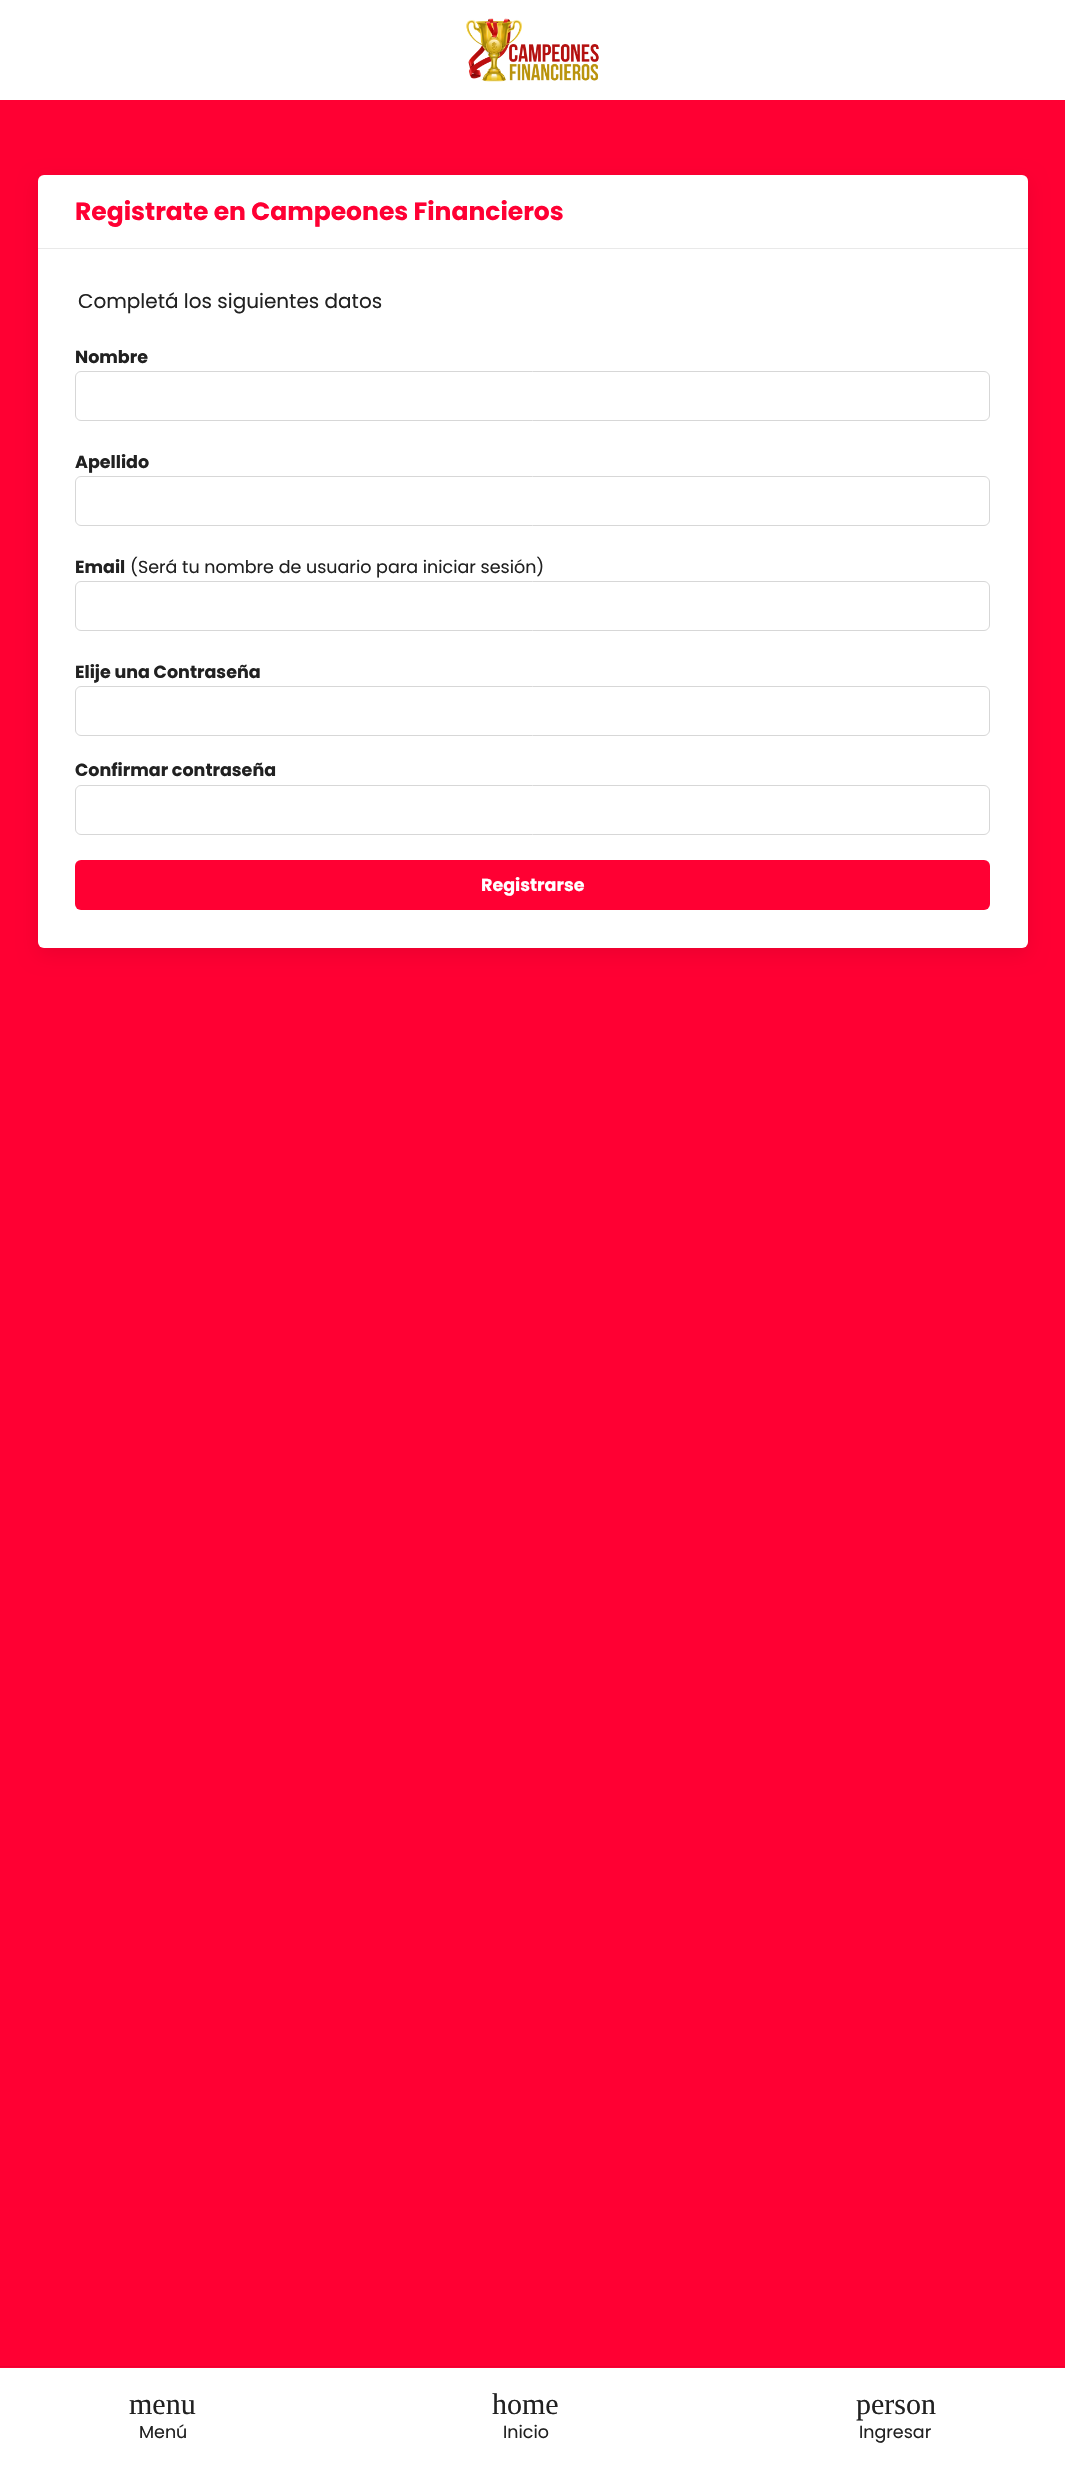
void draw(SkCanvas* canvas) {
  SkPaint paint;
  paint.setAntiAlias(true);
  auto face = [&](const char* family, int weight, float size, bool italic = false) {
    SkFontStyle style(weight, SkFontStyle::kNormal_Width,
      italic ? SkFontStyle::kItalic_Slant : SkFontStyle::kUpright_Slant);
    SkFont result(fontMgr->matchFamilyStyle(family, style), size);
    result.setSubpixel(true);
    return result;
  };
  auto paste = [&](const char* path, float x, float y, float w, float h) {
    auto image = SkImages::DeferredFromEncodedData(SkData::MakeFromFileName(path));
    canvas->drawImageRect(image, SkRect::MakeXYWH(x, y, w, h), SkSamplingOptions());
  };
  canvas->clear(0xffffffff);
  paste("img/1.png", 466, 18, 133, 64);
  paint.setColor(0xffff0033);
  canvas->drawRect(SkRect::MakeXYWH(0, 100, 1065, 2268), paint);
  paint.setColor(0x14000000);
  paint.setMaskFilter(SkMaskFilter::MakeBlur(kNormal_SkBlurStyle, 9.5f));
  canvas->drawRoundRect(SkRect::MakeXYWH(38, 181, 990, 773), 6, 6, paint);
  paint.setMaskFilter(nullptr);
  paint.setColor(0xffffffff);
  canvas->drawRoundRect(SkRect::MakeXYWH(38, 175, 990, 773), 6, 6, paint);
  paint.setColor(0xffe9e9e9);
  canvas->drawRect(SkRect::MakeXYWH(38, 248, 990, 1), paint);
  paint.setStroke(true);
  paint.setStrokeWidth(1);
  paint.setColor(0xffd7d7d7);
  canvas->drawRoundRect(SkRect::MakeXYWH(75.5f, 371.5f, 914, 49), 5.5f, 5.5f, paint);
  canvas->drawRoundRect(SkRect::MakeXYWH(75.5f, 476.5f, 914, 49), 5.5f, 5.5f, paint);
  canvas->drawRoundRect(SkRect::MakeXYWH(75.5f, 581.5f, 914, 49), 5.5f, 5.5f, paint);
  canvas->drawRoundRect(SkRect::MakeXYWH(75.5f, 686.5f, 914, 49), 5.5f, 5.5f, paint);
  canvas->drawRoundRect(SkRect::MakeXYWH(75.5f, 785.5f, 914, 49), 5.5f, 5.5f, paint);
  paint.setStroke(false);
  paint.setColor(0xffff0033);
  canvas->drawRoundRect(SkRect::MakeXYWH(75, 860, 915, 50), 6, 6, paint);
  paint.setColor(0xffe90331);
  canvas->drawRect(SkRect::MakeXYWH(0, 2366, 1065, 1), paint);
  auto f0 = face("Poppins", 700, 25);
  paint.setColor(0xffff0033);
  canvas->drawString("Registrate en Campeones Financieros", 75, 220, f0, paint);
  auto f1 = face("Poppins", 400, 20);
  paint.setColor(0xff212121);
  canvas->drawString("Completá los siguientes datos", 78, 308, f1, paint);
  auto f2 = face("Poppins", 700, 17.5f);
  {
    const struct { const char* s; float x, y; } items[] = {
      {"Nombre", 75, 363},
      {"Apellido", 75, 468},
      {"Email", 75, 573},
    };
    for (auto [s, x, y] : items) {
      canvas->drawString(s, x, y, f2, paint);
    }
  }
  auto f3 = face("Poppins", 400, 17.5f);
  canvas->drawString("(Será tu nombre de usuario para iniciar sesión)", 130, 573, f3, paint);
  canvas->drawString("Elije una Contraseña", 75, 678, f2, paint);
  canvas->drawString("Confirmar contraseña", 75, 776, f2, paint);
  paint.setColor(0xffffffff);
  canvas->drawString("Registrarse", 481, 891, f2, paint);
  auto f4 = face("Liberation Serif", 400, 30);
  paint.setColor(0xff212121);
  canvas->drawString("menu", 129, 2414, f4, paint);
  canvas->drawString("Menú", 139, 2438, f3, paint);
  canvas->drawString("home", 492, 2414, f4, paint);
  canvas->drawString("Inicio", 503, 2438, f3, paint);
  canvas->drawString("person", 856, 2414, f4, paint);
  canvas->drawString("Ingresar", 859, 2438, f3, paint);
}
